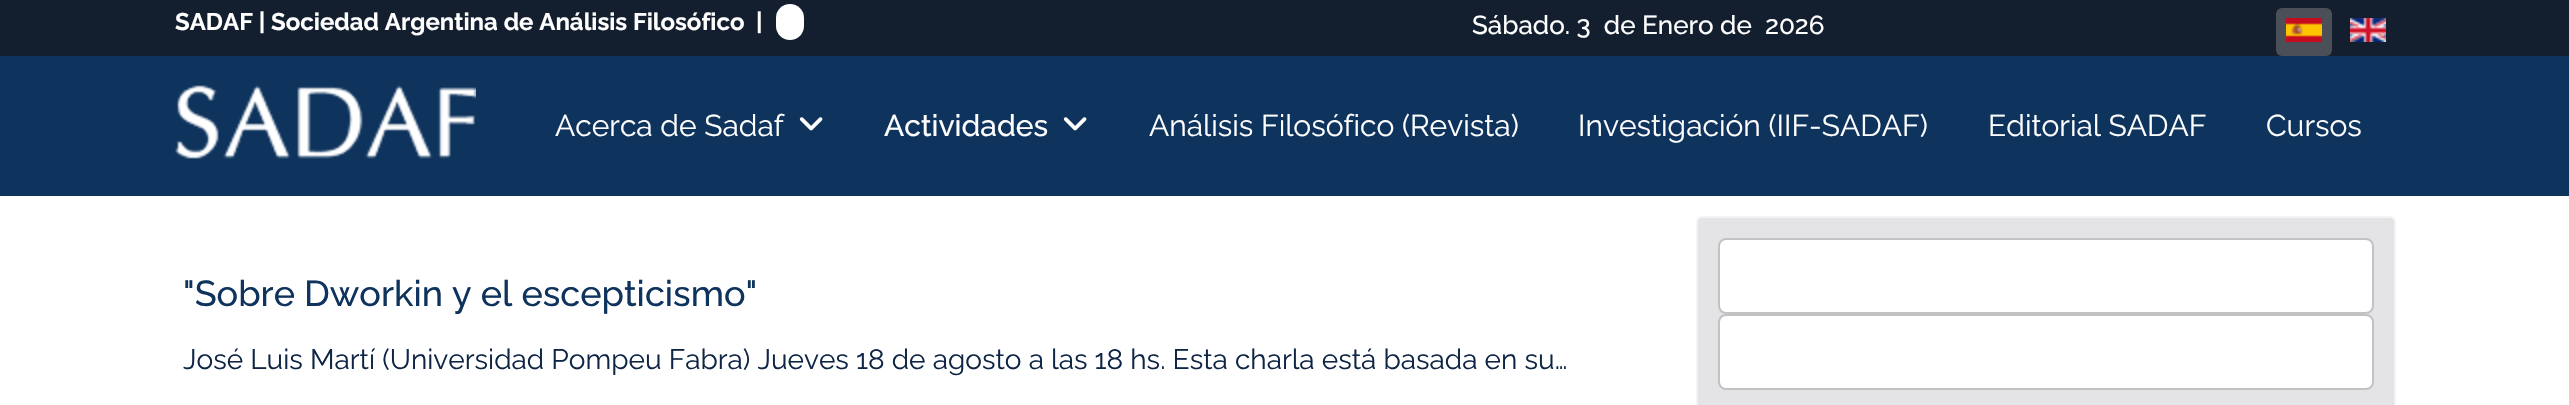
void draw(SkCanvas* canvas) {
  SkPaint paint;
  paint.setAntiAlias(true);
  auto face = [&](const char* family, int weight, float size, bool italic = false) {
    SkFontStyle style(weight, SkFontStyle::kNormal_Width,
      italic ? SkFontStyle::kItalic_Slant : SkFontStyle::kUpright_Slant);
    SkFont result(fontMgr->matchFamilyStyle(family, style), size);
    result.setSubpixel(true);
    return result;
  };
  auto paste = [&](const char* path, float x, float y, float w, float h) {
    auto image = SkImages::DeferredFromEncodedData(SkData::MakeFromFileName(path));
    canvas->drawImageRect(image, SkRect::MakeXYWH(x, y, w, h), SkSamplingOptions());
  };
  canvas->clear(0xffffffff);
  paint.setColor(0xff131e2e);
  canvas->drawRect(SkRect::MakeXYWH(0, 0, 2569, 56), paint);
  paint.setColor(0xffffffff);
  canvas->drawRoundRect(SkRect::MakeXYWH(776, 4, 28, 36), 14, 14, paint);
  paint.setColor(0xff4b5058);
  canvas->drawRoundRect(SkRect::MakeXYWH(2276, 8, 56, 48), 6, 6, paint);
  paste("img/1.png", 2286, 18, 36, 24);
  paste("img/2.png", 2350, 18, 36, 24);
  paint.setColor(0xff0e335d);
  canvas->drawRect(SkRect::MakeXYWH(0, 56, 2569, 140), paint);
  paste("img/3.png", 175, 85, 301, 74);
  paste("img/4.png", 799, 117, 24, 14);
  paste("img/4.png", 1063, 117, 24, 14);
  paint.setColor(0xffe4e3e6);
  canvas->drawRoundRect(SkRect::MakeXYWH(1697, 217, 698, 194), 5, 5, paint);
  paint.setStroke(true);
  paint.setStrokeWidth(2);
  paint.setColor(0xfff3f3f3);
  canvas->drawRoundRect(SkRect::MakeXYWH(1697, 217, 698, 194), 5, 5, paint);
  paint.setStroke(false);
  paint.setColor(0xffffffff);
  canvas->drawRoundRect(SkRect::MakeXYWH(1720, 240, 652, 72), 6, 6, paint);
  paint.setStroke(true);
  paint.setColor(0x26000000);
  canvas->drawRoundRect(SkRect::MakeXYWH(1719, 239, 654, 74), 7, 7, paint);
  paint.setStroke(false);
  paint.setColor(0xffffffff);
  canvas->drawRoundRect(SkRect::MakeXYWH(1720, 316, 652, 72), 6, 6, paint);
  paint.setStroke(true);
  paint.setColor(0x26000000);
  canvas->drawRoundRect(SkRect::MakeXYWH(1719, 315, 654, 74), 7, 7, paint);
  auto f0 = face("Raleway", 700, 24);
  paint.setStroke(false);
  paint.setColor(0xffffffff);
  canvas->drawString("SADAF | Sociedad Argentina de Análisis Filosófico", 175, 30, f0, paint);
  canvas->drawString("|", 756, 30, f0, paint);
  auto f1 = face("Raleway", 500, 26);
  canvas->drawString("Sábado. 3  de Enero de  2026", 1472, 34, f1, paint);
  auto f2 = face("Raleway", 400, 30);
  canvas->drawString("Acerca de Sadaf", 555, 136, f2, paint);
  auto f3 = face("Raleway", 500, 30);
  canvas->drawString("Actividades", 884, 136, f3, paint);
  {
    const struct { const char* s; float x, y; } items[] = {
      {"Análisis Filosófico (Revista)", 1149, 136},
      {"Investigación (IIF-SADAF)", 1578, 136},
      {"Editorial SADAF", 1988, 136},
      {"Cursos", 2266, 136},
    };
    for (auto [s, x, y] : items) {
      canvas->drawString(s, x, y, f2, paint);
    }
  }
  auto f4 = face("Raleway", 500, 36);
  paint.setColor(0xff0e335d);
  canvas->drawString("\"Sobre Dworkin y el escepticismo\"", 183, 306, f4, paint);
  auto f5 = face("Raleway", 400, 28);
  paint.setColor(0xff0e2545);
  canvas->drawString("José Luis Martí (Universidad Pompeu Fabra) Jueves 18 de agosto a las 18 hs. Esta charla está basada en su…", 183, 369, f5, paint);
}
